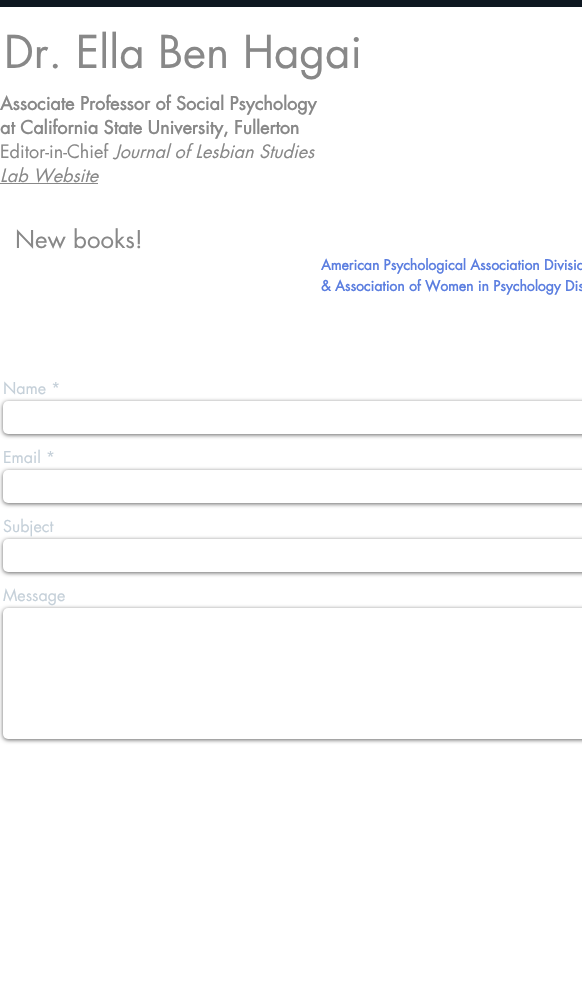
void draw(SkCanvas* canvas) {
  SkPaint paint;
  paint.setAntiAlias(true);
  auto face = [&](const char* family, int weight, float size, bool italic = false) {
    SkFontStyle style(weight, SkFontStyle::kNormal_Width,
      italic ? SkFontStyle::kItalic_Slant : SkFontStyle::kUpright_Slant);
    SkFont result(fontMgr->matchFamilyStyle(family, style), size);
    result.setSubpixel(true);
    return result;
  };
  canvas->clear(0xffffffff);
  paint.setColor(0xff0e1821);
  canvas->drawRect(SkRect::MakeXYWH(0, 0, 582, 7), paint);
  paint.setColor(0xff888888);
  canvas->drawRect(SkRect::MakeXYWH(0, 183, 98, 1), paint);
  paint.setColor(0x99000000);
  paint.setMaskFilter(SkMaskFilter::MakeBlur(kNormal_SkBlurStyle, 2));
  canvas->drawRoundRect(SkRect::MakeXYWH(3, 402, 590, 33), 5, 5, paint);
  paint.setMaskFilter(nullptr);
  paint.setColor(0xffffffff);
  canvas->drawRoundRect(SkRect::MakeXYWH(3, 401, 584, 33), 5, 5, paint);
  paint.setColor(0x99000000);
  paint.setMaskFilter(SkMaskFilter::MakeBlur(kNormal_SkBlurStyle, 2));
  canvas->drawRoundRect(SkRect::MakeXYWH(3, 471, 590, 33), 5, 5, paint);
  paint.setMaskFilter(nullptr);
  paint.setColor(0xffffffff);
  canvas->drawRoundRect(SkRect::MakeXYWH(3, 470, 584, 33), 5, 5, paint);
  paint.setColor(0x99000000);
  paint.setMaskFilter(SkMaskFilter::MakeBlur(kNormal_SkBlurStyle, 2));
  canvas->drawRoundRect(SkRect::MakeXYWH(3, 540, 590, 33), 5, 5, paint);
  paint.setMaskFilter(nullptr);
  paint.setColor(0xffffffff);
  canvas->drawRoundRect(SkRect::MakeXYWH(3, 539, 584, 33), 5, 5, paint);
  paint.setColor(0x99000000);
  paint.setMaskFilter(SkMaskFilter::MakeBlur(kNormal_SkBlurStyle, 2));
  canvas->drawRoundRect(SkRect::MakeXYWH(3, 609, 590, 131), 5, 5, paint);
  paint.setMaskFilter(nullptr);
  paint.setColor(0xffffffff);
  canvas->drawRoundRect(SkRect::MakeXYWH(3, 608, 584, 131), 5, 5, paint);
  auto f0 = face("futura", 400, 44);
  paint.setColor(0xff888888);
  canvas->drawString("Dr. Ella Ben Hagai", 4, 68, f0, paint);
  auto f1 = face("futura", 700, 18);
  canvas->drawString("Associate Professor of Social Psychology", 0, 110, f1, paint);
  canvas->drawString("at California State University, Fullerton", 0, 134, f1, paint);
  auto f2 = face("futura", 400, 18);
  canvas->drawString("Editor-in-Chief", 0, 158, f2, paint);
  auto f3 = face("futura", 400, 18, true);
  canvas->drawString("Journal of Lesbian Studies", 114, 158, f3, paint);
  canvas->drawString("Lab Website", 0, 182, f3, paint);
  auto f4 = face("futura", 400, 24);
  canvas->drawString("New books!", 15, 248, f4, paint);
  auto f5 = face("futura", 700, 14);
  paint.setColor(0xff5b7ee0);
  canvas->drawString("American Psychological Association Divisio", 321, 270, f5, paint);
  canvas->drawString("& Association of Women in Psychology Dis", 321, 291, f5, paint);
  auto f6 = face("futura", 400, 16);
  paint.setColor(0xffc5d0d9);
  {
    const struct { const char* s; float x, y; } items[] = {
      {"Name *", 3, 394},
      {"Email *", 3, 463},
      {"Subject", 3, 532},
      {"Message", 3, 601},
    };
    for (auto [s, x, y] : items) {
      canvas->drawString(s, x, y, f6, paint);
    }
  }
}
